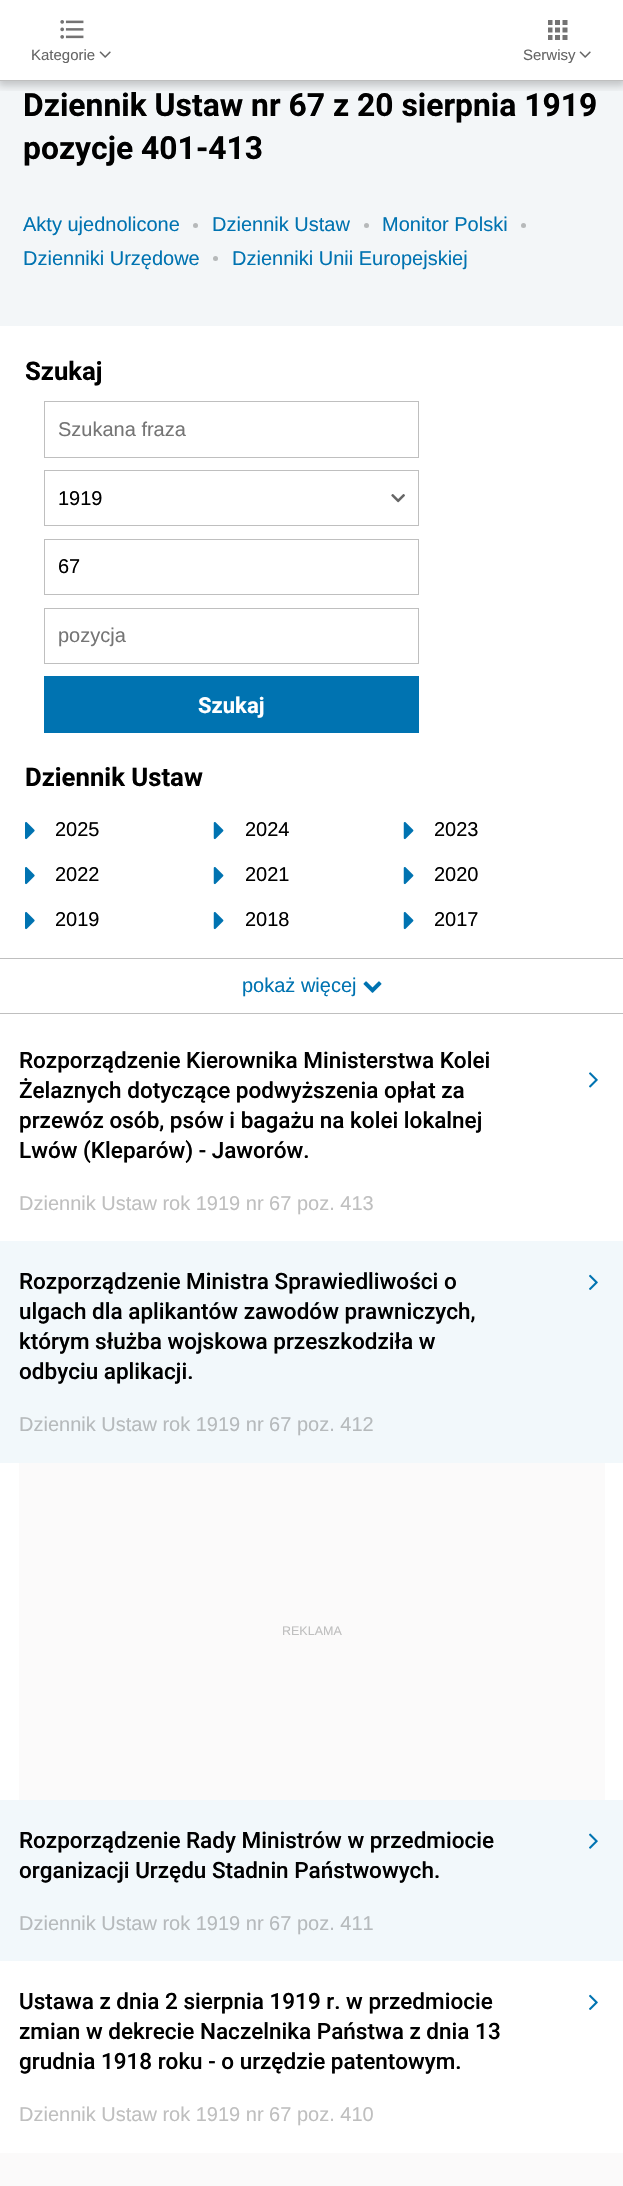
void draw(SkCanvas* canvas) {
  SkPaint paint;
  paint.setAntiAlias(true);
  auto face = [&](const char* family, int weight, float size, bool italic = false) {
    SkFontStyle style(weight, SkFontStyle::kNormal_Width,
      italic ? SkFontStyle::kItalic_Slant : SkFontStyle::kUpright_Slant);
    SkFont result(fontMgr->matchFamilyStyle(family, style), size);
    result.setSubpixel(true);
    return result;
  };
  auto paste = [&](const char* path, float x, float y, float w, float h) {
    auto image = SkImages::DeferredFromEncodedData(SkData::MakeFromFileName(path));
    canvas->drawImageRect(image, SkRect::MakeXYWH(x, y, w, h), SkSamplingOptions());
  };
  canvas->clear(0xffffffff);
  paint.setColor(0xfff3f6f8);
  canvas->drawRect(SkRect::MakeXYWH(0, 81, 623, 245), paint);
  canvas->save();
  canvas->clipRect(SkRect::MakeXYWH(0, 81, 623, 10));
  paint.setColor(0x33000000);
  paint.setMaskFilter(SkMaskFilter::MakeBlur(kNormal_SkBlurStyle, 4));
  canvas->drawRect(SkRect::MakeXYWH(-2, 0, 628, 86), paint);
  paint.setMaskFilter(nullptr);
  canvas->restore();
  paste("img/1.png", 60, 20, 24, 19);
  paste("img/2.png", 99, 51, 12, 7);
  paste("img/3.png", 548, 20, 20, 20);
  paste("img/2.png", 579, 51, 12, 7);
  paint.setColor(0xffbfbfbf);
  canvas->drawRect(SkRect::MakeXYWH(0, 80, 623, 1), paint);
  paint.setColor(0xffb6b9ba);
  canvas->drawCircle(195.5f, 225.5f, 2.5f, paint);
  canvas->drawCircle(366.5f, 225.5f, 2.5f, paint);
  canvas->drawCircle(523.5f, 225.5f, 2.5f, paint);
  canvas->drawCircle(215.5f, 258.5f, 2.5f, paint);
  paint.setStroke(true);
  paint.setStrokeWidth(1);
  paint.setColor(0xffbfbfbf);
  canvas->drawRect(SkRect::MakeXYWH(44.5f, 401.5f, 374, 56), paint);
  paste("img/4.png", 391, 494, 14, 9);
  canvas->drawRect(SkRect::MakeXYWH(44.5f, 470.5f, 374, 55), paint);
  canvas->drawRect(SkRect::MakeXYWH(44.5f, 539.5f, 374, 55), paint);
  canvas->drawRect(SkRect::MakeXYWH(44.5f, 608.5f, 374, 55), paint);
  paint.setStroke(false);
  paint.setColor(0xff0073b1);
  canvas->drawRect(SkRect::MakeXYWH(44, 676, 375, 57), paint);
  paste("img/5.png", 25, 822, 10, 18);
  paste("img/6.png", 213, 822, 11, 18);
  paste("img/6.png", 403, 822, 11, 18);
  paste("img/5.png", 25, 867, 10, 18);
  paste("img/6.png", 213, 867, 11, 18);
  paste("img/6.png", 403, 867, 11, 18);
  paste("img/5.png", 25, 912, 10, 18);
  paste("img/6.png", 213, 912, 11, 18);
  paste("img/6.png", 403, 912, 11, 18);
  paint.setColor(0xffbfbfbf);
  canvas->drawRect(SkRect::MakeXYWH(0, 958, 623, 1), paint);
  canvas->drawRect(SkRect::MakeXYWH(0, 1013, 623, 1), paint);
  paste("img/7.png", 363, 981, 19, 12);
  paste("img/8.png", 589, 1072, 9, 16);
  paint.setColor(0xfff2f8fb);
  canvas->drawRect(SkRect::MakeXYWH(0, 1241, 623, 222), paint);
  paste("img/9.png", 589, 1274, 9, 16);
  paint.setColor(0xfffbfafa);
  canvas->drawRect(SkRect::MakeXYWH(19, 1463, 586, 337), paint);
  paint.setColor(0xfff2f8fb);
  canvas->drawRect(SkRect::MakeXYWH(0, 1800, 623, 161), paint);
  paste("img/10.png", 589, 1833, 9, 16);
  paste("img/11.png", 589, 1994, 9, 16);
  paint.setColor(0xfffbfafa);
  canvas->drawRect(SkRect::MakeXYWH(0, 2153, 623, 33), paint);
  auto f0 = face("Liberation Sans", 400, 15);
  paint.setColor(0xff666666);
  canvas->drawString("Kategorie", 31, 60, f0, paint);
  canvas->drawString("Serwisy", 523, 60, f0, paint);
  auto f1 = face("Roboto", 700, 32.5f);
  paint.setColor(0xff000000);
  canvas->drawString("Dziennik Ustaw nr 67 z 20 sierpnia 1919", 23, 116, f1, paint);
  canvas->drawString("pozycje 401-413", 23, 159, f1, paint);
  auto f2 = face("Liberation Sans", 400, 20);
  paint.setColor(0xff0073b1);
  {
    const struct { const char* s; float x, y; } items[] = {
      {"Akty ujednolicone", 23, 231},
      {"Dziennik Ustaw", 212, 231},
      {"Monitor Polski", 382, 231},
      {"Dzienniki Urzędowe", 23, 265},
      {"Dzienniki Unii Europejskiej", 232, 265},
    };
    for (auto [s, x, y] : items) {
      canvas->drawString(s, x, y, f2, paint);
    }
  }
  auto f3 = face("Roboto", 700, 26.25f);
  paint.setColor(0xff000000);
  canvas->drawString("Szukaj", 25, 380, f3, paint);
  paint.setColor(0xff757575);
  canvas->drawString("Szukana fraza", 58, 436, f2, paint);
  paint.setColor(0xff000000);
  canvas->drawString("1919", 58, 505, f2, paint);
  canvas->drawString("67", 58, 573, f2, paint);
  paint.setColor(0xff757575);
  canvas->drawString("pozycja", 58, 642, f2, paint);
  auto f4 = face("Roboto", 700, 22.5f);
  paint.setColor(0xffffffff);
  canvas->drawString("Szukaj", 198, 713, f4, paint);
  paint.setColor(0xff000000);
  canvas->drawString("Dziennik Ustaw", 25, 786, f3, paint);
  {
    const struct { const char* s; float x, y; } items[] = {
      {"2025", 55, 836},
      {"2024", 245, 836},
      {"2023", 434, 836},
      {"2022", 55, 881},
      {"2021", 245, 881},
      {"2020", 434, 881},
      {"2019", 55, 926},
      {"2018", 245, 926},
      {"2017", 434, 926},
    };
    for (auto [s, x, y] : items) {
      canvas->drawString(s, x, y, f2, paint);
    }
  }
  paint.setColor(0xff0073b1);
  canvas->drawString("pokaż więcej", 242, 992, f2, paint);
  auto f5 = face("Roboto", 500, 22.5f);
  paint.setColor(0xff000000);
  {
    const struct { const char* s; float x, y; } items[] = {
      {"Rozporządzenie Kierownika Ministerstwa Kolei", 19, 1068},
      {"Żelaznych dotyczące podwyższenia opłat za", 19, 1098},
      {"przewóz osób, psów i bagażu na kolei lokalnej", 19, 1128},
      {"Lwów (Kleparów) - Jaworów.", 19, 1158},
    };
    for (auto [s, x, y] : items) {
      canvas->drawString(s, x, y, f5, paint);
    }
  }
  paint.setColor(0xffbfbfbf);
  canvas->drawString("Dziennik Ustaw rok 1919 nr 67 poz. 413", 19, 1210, f2, paint);
  paint.setColor(0xff000000);
  {
    const struct { const char* s; float x, y; } items[] = {
      {"Rozporządzenie Ministra Sprawiedliwości o", 19, 1289},
      {"ulgach dla aplikantów zawodów prawniczych,", 19, 1319},
      {"którym służba wojskowa przeszkodziła w", 19, 1349},
      {"odbyciu aplikacji.", 19, 1379},
    };
    for (auto [s, x, y] : items) {
      canvas->drawString(s, x, y, f5, paint);
    }
  }
  paint.setColor(0xffb6babc);
  canvas->drawString("Dziennik Ustaw rok 1919 nr 67 poz. 412", 19, 1431, f2, paint);
  auto f6 = face("Liberation Sans", 400, 12.5f);
  paint.setColor(0xffbfbfbf);
  canvas->drawString("REKLAMA", 282, 1635, f6, paint);
  paint.setColor(0xff000000);
  canvas->drawString("Rozporządzenie Rady Ministrów w przedmiocie", 19, 1848, f5, paint);
  canvas->drawString("organizacji Urzędu Stadnin Państwowych.", 19, 1878, f5, paint);
  paint.setColor(0xffb6babc);
  canvas->drawString("Dziennik Ustaw rok 1919 nr 67 poz. 411", 19, 1930, f2, paint);
  paint.setColor(0xff000000);
  {
    const struct { const char* s; float x, y; } items[] = {
      {"Ustawa z dnia 2 sierpnia 1919 r. w przedmiocie", 19, 2009},
      {"zmian w dekrecie Naczelnika Państwa z dnia 13", 19, 2039},
      {"grudnia 1918 roku - o urzędzie patentowym.", 19, 2069},
    };
    for (auto [s, x, y] : items) {
      canvas->drawString(s, x, y, f5, paint);
    }
  }
  paint.setColor(0xffbfbfbf);
  canvas->drawString("Dziennik Ustaw rok 1919 nr 67 poz. 410", 19, 2121, f2, paint);
}
